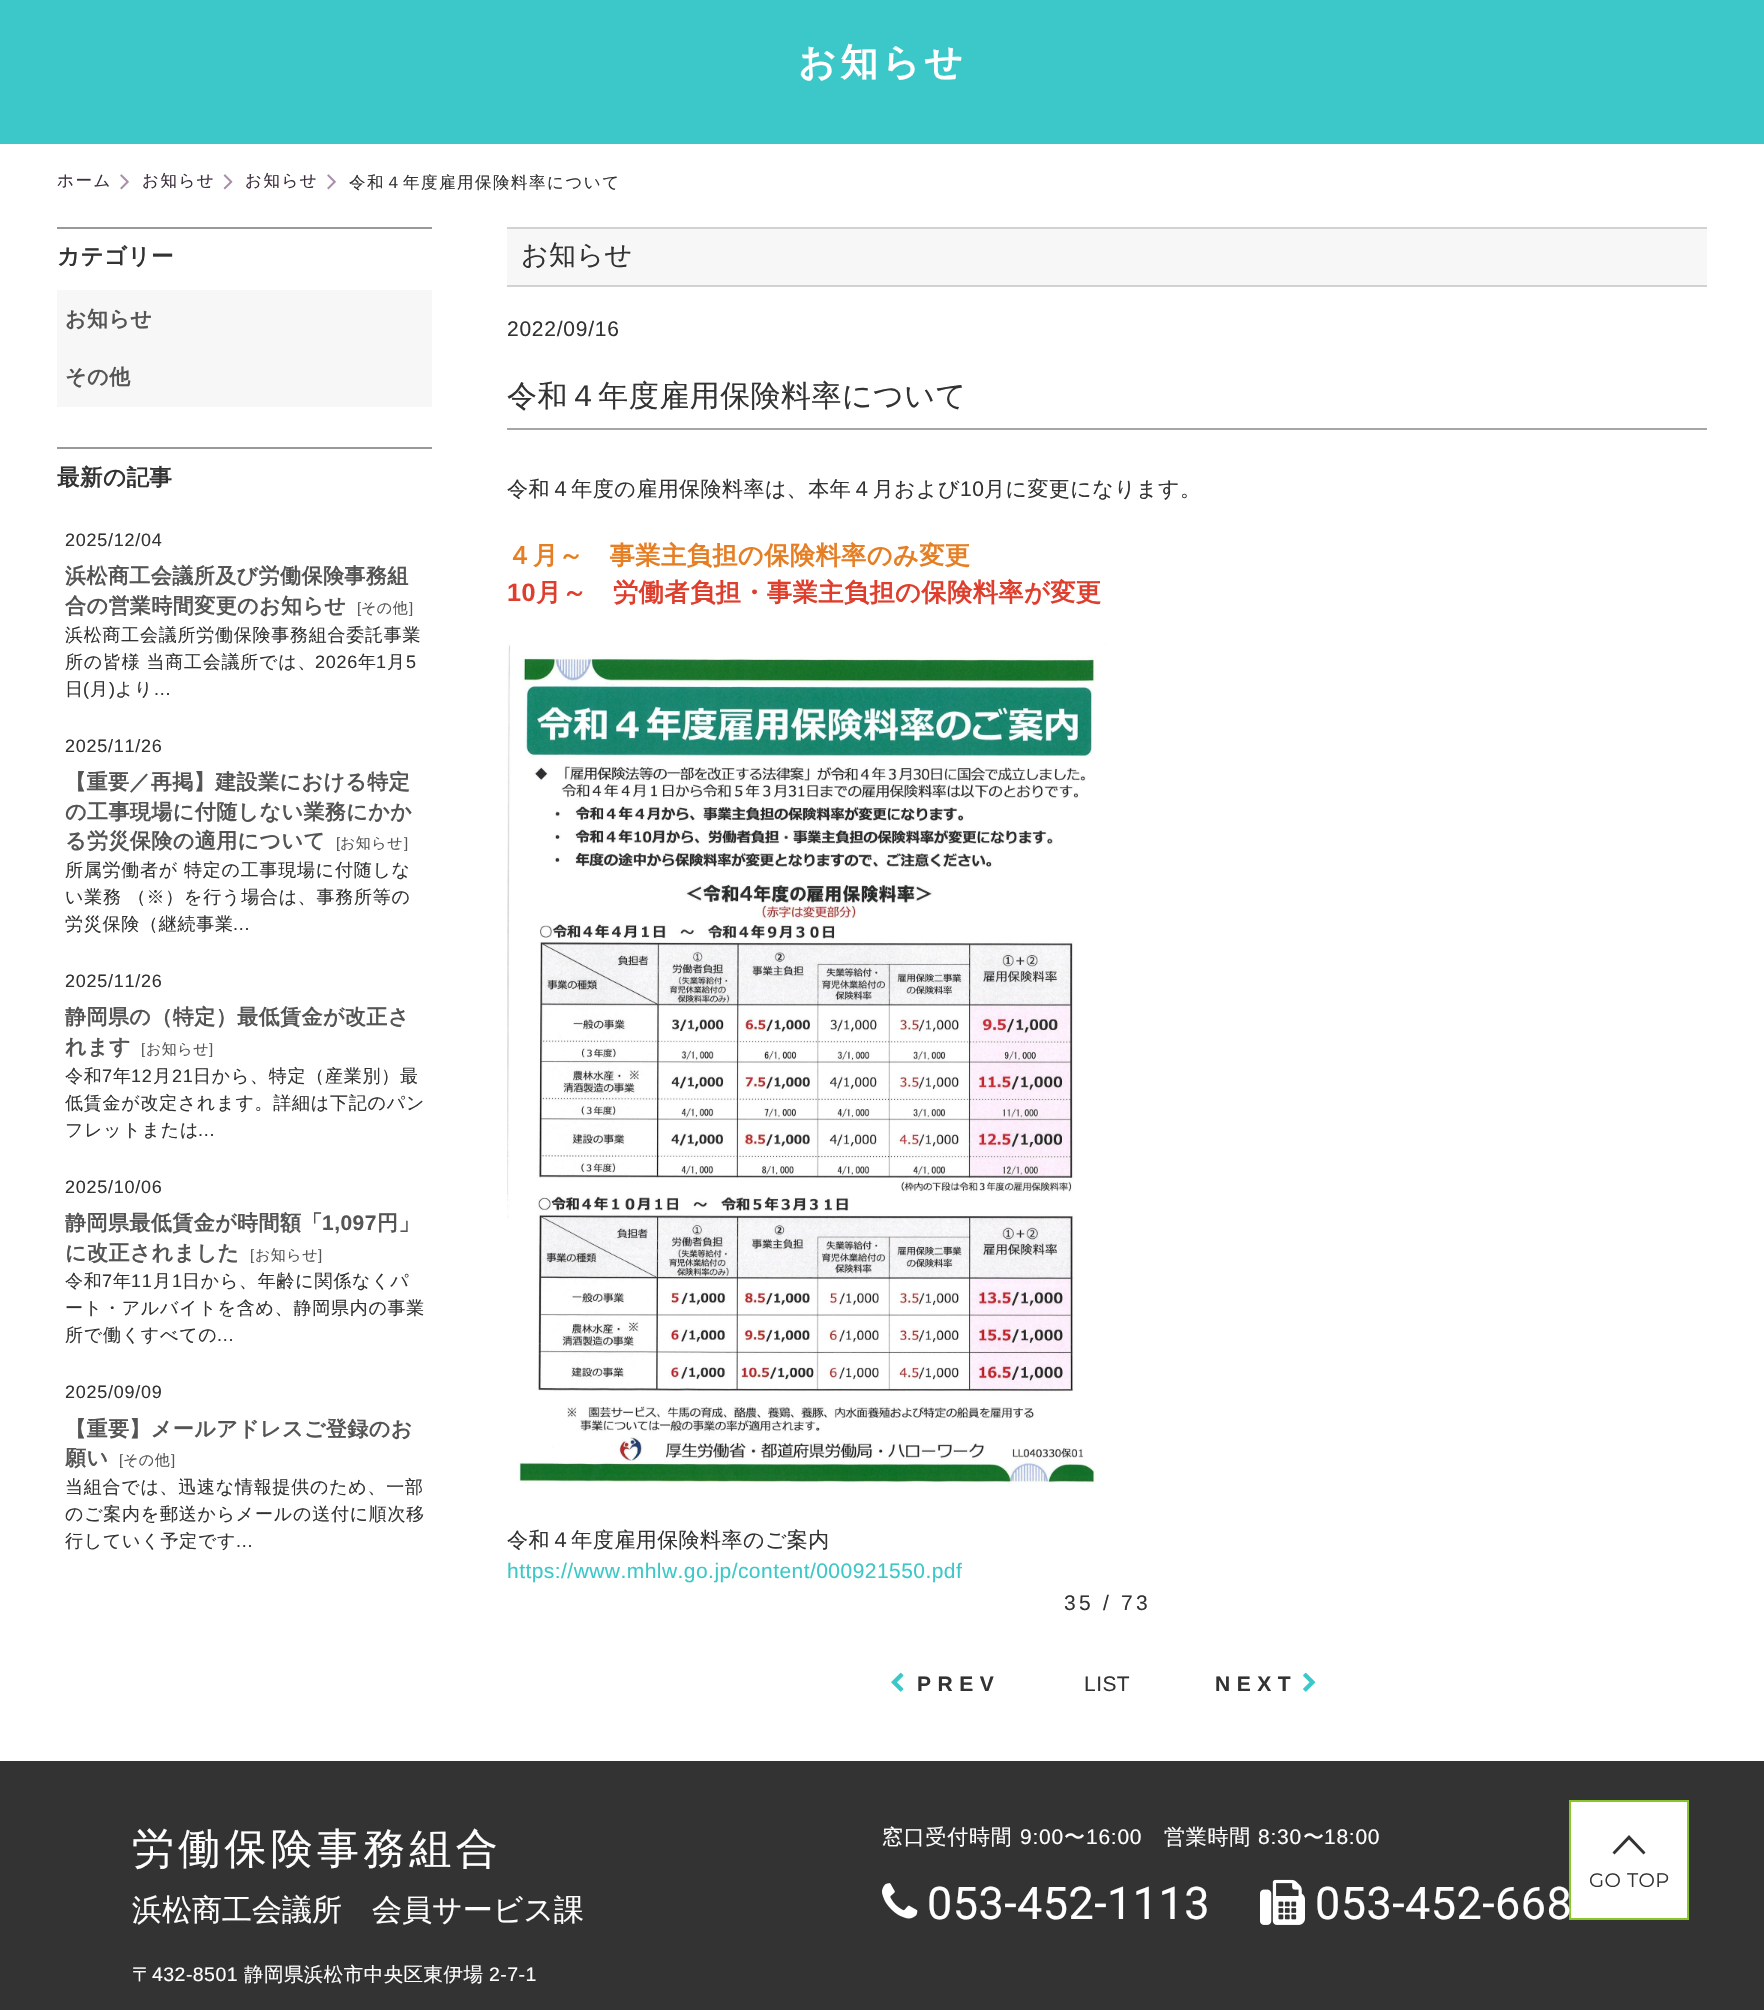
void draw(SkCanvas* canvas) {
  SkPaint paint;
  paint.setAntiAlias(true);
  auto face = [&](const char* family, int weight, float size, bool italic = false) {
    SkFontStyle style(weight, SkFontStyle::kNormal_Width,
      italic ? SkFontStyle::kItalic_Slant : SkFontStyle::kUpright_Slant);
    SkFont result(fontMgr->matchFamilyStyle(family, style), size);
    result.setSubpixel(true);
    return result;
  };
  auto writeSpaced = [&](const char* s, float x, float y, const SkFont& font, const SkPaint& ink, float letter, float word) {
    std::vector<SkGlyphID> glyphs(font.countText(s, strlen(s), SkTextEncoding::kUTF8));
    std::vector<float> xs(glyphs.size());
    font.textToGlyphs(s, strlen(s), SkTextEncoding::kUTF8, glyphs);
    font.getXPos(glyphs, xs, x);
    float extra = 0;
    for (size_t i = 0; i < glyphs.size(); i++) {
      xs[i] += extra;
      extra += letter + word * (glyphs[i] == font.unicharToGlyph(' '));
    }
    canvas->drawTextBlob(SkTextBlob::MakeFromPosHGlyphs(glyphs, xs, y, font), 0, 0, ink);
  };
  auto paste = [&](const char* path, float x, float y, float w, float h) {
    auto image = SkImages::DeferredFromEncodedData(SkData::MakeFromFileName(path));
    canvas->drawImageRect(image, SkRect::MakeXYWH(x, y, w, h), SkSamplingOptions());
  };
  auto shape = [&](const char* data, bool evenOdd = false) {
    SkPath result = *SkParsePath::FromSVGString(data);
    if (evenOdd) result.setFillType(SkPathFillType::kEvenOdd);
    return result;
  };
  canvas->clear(0xffffffff);
  paint.setColor(0xff3cc8c8);
  canvas->drawRect(SkRect::MakeXYWH(0, 0, 1764, 144), paint);
  paste("img/1.png", 120, 174, 9, 16);
  paste("img/2.png", 223, 174, 10, 16);
  paste("img/1.png", 327, 174, 9, 16);
  {
    const struct { float x, y, w, h; SkColor color; } items[] = {
      {57, 227, 375, 2, 0xff999999},
      {57, 290, 375, 117, 0xfff7f7f7},
      {57, 447, 375, 2, 0xff999999},
      {507, 229, 1200, 56, 0xfff7f7f7},
      {507, 227, 1200, 2, 0xffd2d2d2},
      {507, 285, 1200, 2, 0xffd2d2d2},
      {507, 428, 1200, 2, 0xffa6a6a6},
    };
    for (auto [x, y, w, h, color] : items) {
      paint.setColor(color);
      canvas->drawRect(SkRect::MakeXYWH(x, y, w, h), paint);
    }
  }
  paste("img/3.png", 507, 644, 600, 840);
  paste("img/4.png", 891, 1672, 13, 20);
  paste("img/5.png", 1303, 1672, 13, 20);
  paint.setColor(0xff333333);
  canvas->drawRect(SkRect::MakeXYWH(0, 1761, 1764, 249), paint);
  paste("img/6.png", 882, 1883, 36, 36);
  paste("img/7.png", 1260, 1879, 45, 46);
  paint.setColor(0xffffffff);
  canvas->drawRect(SkRect::MakeXYWH(1570, 1801, 118, 118), paint);
  paint.setStroke(true);
  paint.setStrokeWidth(2);
  paint.setColor(0xff87c828);
  canvas->drawRect(SkRect::MakeXYWH(1570, 1801, 118, 118), paint);
  paint.setStroke(false);
  paint.setColor(0xff333333);
  canvas->drawPath(shape("M1643.5 1854.5L1629 1839.5L1614.5 1854.5L1612.5 1852.5L1629 1835L1645.5 1852.5Z"), paint);
  auto f0 = face("WenQuanYi Zen Hei", 700, 37.5f);
  paint.setColor(0xffffffff);
  writeSpaced("お知らせ", 798, 75, f0, paint, 4, 0);
  auto f1 = face("WenQuanYi Zen Hei", 500, 16.5f);
  paint.setColor(0xff3c2e3d);
  {
    const struct { const char* s; float x, y; } items[] = {
      {"ホーム", 57, 186},
      {"お知らせ", 142, 186},
      {"お知らせ", 245, 186},
    };
    for (auto [s, x, y] : items) {
      writeSpaced(s, x, y, f1, paint, 1.5f, 0);
    }
  }
  paint.setColor(0xff333333);
  writeSpaced("令和４年度雇用保険料率について", 349, 188, f1, paint, 1.5f, 0);
  auto f2 = face("WenQuanYi Zen Hei", 700, 22.5f);
  writeSpaced("カテゴリー", 57, 264, f2, paint, 0.45f, 0);
  auto f3 = face("WenQuanYi Zen Hei", 700, 21);
  paint.setColor(0xff555555);
  writeSpaced("お知らせ", 65, 326, f3, paint, 0.45f, 0);
  writeSpaced("その他", 65, 384, f3, paint, 0.45f, 0);
  paint.setColor(0xff333333);
  writeSpaced("最新の記事", 57, 485, f2, paint, 0.45f, 0);
  auto f4 = face("Liberation Sans", 400, 18);
  writeSpaced("2025/12/04", 65, 546, f4, paint, 0.75f, 0);
  paint.setColor(0xff555555);
  writeSpaced("浜松商工会議所及び労働保険事務組", 65, 583, f3, paint, 0.45f, 0);
  writeSpaced("合の営業時間変更のお知らせ", 65, 613, f3, paint, 0.45f, 0);
  auto f5 = face("Liberation Sans", 400, 15);
  writeSpaced("[", 357, 613, f5, paint, 0.5f, 0);
  auto f6 = face("WenQuanYi Zen Hei", 500, 15);
  writeSpaced("その他", 361, 613, f6, paint, 0.5f, 0);
  writeSpaced("]", 409, 613, f5, paint, 0.5f, 0);
  auto f7 = face("WenQuanYi Zen Hei", 500, 18);
  paint.setColor(0xff333333);
  writeSpaced("浜松商工会議所労働保険事務組合委託事業", 65, 641, f7, paint, 0.75f, 0);
  writeSpaced("所の皆様 当商工会議所では、", 65, 668, f7, paint, 0.75f, 0);
  writeSpaced("2026", 315, 668, f4, paint, 0.75f, 0);
  writeSpaced("年", 358, 668, f7, paint, 0.75f, 0);
  writeSpaced("1", 376, 668, f4, paint, 0.75f, 0);
  writeSpaced("月", 387, 668, f7, paint, 0.75f, 0);
  writeSpaced("5", 406, 668, f4, paint, 0.75f, 0);
  writeSpaced("日", 65, 695, f7, paint, 0.75f, 0);
  writeSpaced("(", 83, 695, f4, paint, 0.75f, 0);
  writeSpaced("月", 90, 695, f7, paint, 0.75f, 0);
  writeSpaced(")", 109, 695, f4, paint, 0.75f, 0);
  writeSpaced("より", 115, 695, f7, paint, 0.75f, 0);
  writeSpaced("...", 154, 695, f4, paint, 0.75f, 0);
  writeSpaced("2025/11/26", 65, 752, f4, paint, 0.75f, 0);
  paint.setColor(0xff555555);
  {
    const struct { const char* s; float x, y; } items[] = {
      {"【重要／再掲】建設業における特定", 65, 789},
      {"の工事現場に付随しない業務にかか", 65, 819},
      {"る労災保険の適用について", 65, 848},
    };
    for (auto [s, x, y] : items) {
      writeSpaced(s, x, y, f3, paint, 0.45f, 0);
    }
  }
  writeSpaced("[", 336, 848, f5, paint, 0.5f, 0);
  writeSpaced("お知らせ", 340, 848, f6, paint, 0.5f, 0);
  writeSpaced("]", 404, 848, f5, paint, 0.5f, 0);
  paint.setColor(0xff333333);
  {
    const struct { const char* s; float x, y; } items[] = {
      {"所属労働者が 特定の工事現場に付随しな", 65, 876},
      {"い業務 （※）を行う場合は、事務所等の", 65, 903},
      {"労災保険（継続事業", 65, 930},
    };
    for (auto [s, x, y] : items) {
      writeSpaced(s, x, y, f7, paint, 0.75f, 0);
    }
  }
  writeSpaced("...", 233, 930, f4, paint, 0.75f, 0);
  writeSpaced("2025/11/26", 65, 987, f4, paint, 0.75f, 0);
  paint.setColor(0xff555555);
  writeSpaced("静岡県の（特定）最低賃金が改正さ", 65, 1024, f3, paint, 0.45f, 0);
  writeSpaced("れます", 65, 1054, f3, paint, 0.45f, 0);
  writeSpaced("[", 141, 1054, f5, paint, 0.5f, 0);
  writeSpaced("お知らせ", 146, 1054, f6, paint, 0.5f, 0);
  writeSpaced("]", 209, 1054, f5, paint, 0.5f, 0);
  paint.setColor(0xff333333);
  writeSpaced("令和", 65, 1082, f7, paint, 0.75f, 0);
  writeSpaced("7", 102, 1082, f4, paint, 0.75f, 0);
  writeSpaced("年", 113, 1082, f7, paint, 0.75f, 0);
  writeSpaced("12", 131, 1082, f4, paint, 0.75f, 0);
  writeSpaced("月", 153, 1082, f7, paint, 0.75f, 0);
  writeSpaced("21", 172, 1082, f4, paint, 0.75f, 0);
  {
    const struct { const char* s; float x, y; } items[] = {
      {"日から、特定（産業別）最", 193, 1082},
      {"低賃金が改定されます。詳細は下記のパン", 65, 1109},
      {"フレットまたは", 65, 1136},
    };
    for (auto [s, x, y] : items) {
      writeSpaced(s, x, y, f7, paint, 0.75f, 0);
    }
  }
  writeSpaced("...", 198, 1136, f4, paint, 0.75f, 0);
  writeSpaced("2025/10/06", 65, 1193, f4, paint, 0.75f, 0);
  paint.setColor(0xff555555);
  writeSpaced("静岡県最低賃金が時間額「", 65, 1230, f3, paint, 0.45f, 0);
  auto f8 = face("Liberation Sans", 700, 21);
  writeSpaced("1,097", 322, 1230, f8, paint, 0.45f, 0);
  writeSpaced("円」", 377, 1230, f3, paint, 0.45f, 0);
  writeSpaced("に改正されました", 65, 1260, f3, paint, 0.45f, 0);
  writeSpaced("[", 250, 1260, f5, paint, 0.5f, 0);
  writeSpaced("お知らせ", 255, 1260, f6, paint, 0.5f, 0);
  writeSpaced("]", 318, 1260, f5, paint, 0.5f, 0);
  paint.setColor(0xff333333);
  writeSpaced("令和", 65, 1287, f7, paint, 0.75f, 0);
  writeSpaced("7", 102, 1287, f4, paint, 0.75f, 0);
  writeSpaced("年", 113, 1287, f7, paint, 0.75f, 0);
  writeSpaced("11", 131, 1287, f4, paint, 0.75f, 0);
  writeSpaced("月", 153, 1287, f7, paint, 0.75f, 0);
  writeSpaced("1", 172, 1287, f4, paint, 0.75f, 0);
  {
    const struct { const char* s; float x, y; } items[] = {
      {"日から、年齢に関係なくパ", 182, 1287},
      {"ート・アルバイトを含め、静岡県内の事業", 65, 1314},
      {"所で働くすべての", 65, 1341},
    };
    for (auto [s, x, y] : items) {
      writeSpaced(s, x, y, f7, paint, 0.75f, 0);
    }
  }
  writeSpaced("...", 217, 1341, f4, paint, 0.75f, 0);
  writeSpaced("2025/09/09", 65, 1398, f4, paint, 0.75f, 0);
  paint.setColor(0xff555555);
  writeSpaced("【重要】メールアドレスご登録のお", 65, 1436, f3, paint, 0.45f, 0);
  writeSpaced("願い", 65, 1465, f3, paint, 0.45f, 0);
  writeSpaced("[", 119, 1465, f5, paint, 0.5f, 0);
  writeSpaced("その他", 123, 1465, f6, paint, 0.5f, 0);
  writeSpaced("]", 171, 1465, f5, paint, 0.5f, 0);
  paint.setColor(0xff333333);
  {
    const struct { const char* s; float x, y; } items[] = {
      {"当組合では、迅速な情報提供のため、一部", 65, 1493},
      {"のご案内を郵送からメールの送付に順次移", 65, 1520},
      {"行していく予定です", 65, 1547},
    };
    for (auto [s, x, y] : items) {
      writeSpaced(s, x, y, f7, paint, 0.75f, 0);
    }
  }
  writeSpaced("...", 236, 1547, f4, paint, 0.75f, 0);
  auto f9 = face("WenQuanYi Zen Hei", 500, 27);
  writeSpaced("お知らせ", 521, 264, f9, paint, 0.45f, 0);
  auto f10 = face("Liberation Sans", 400, 21);
  writeSpaced("2022/09/16", 507, 336, f10, paint, 0.75f, 0);
  auto f11 = face("WenQuanYi Zen Hei", 500, 30);
  writeSpaced("令和４年度雇用保険料率について", 507, 406, f11, paint, 0.45f, 0);
  auto f12 = face("WenQuanYi Zen Hei", 500, 21);
  writeSpaced("令和４年度の雇用保険料率は、本年４月および", 507, 496, f12, paint, 0.45f, 0);
  writeSpaced("10", 960, 496, f10, paint, 0.45f, 0);
  writeSpaced("月に変更になります。", 984, 496, f12, paint, 0.45f, 0);
  auto f13 = face("WenQuanYi Zen Hei", 700, 25.2f);
  paint.setColor(0xffe67e23);
  writeSpaced("４月～　事業主負担の保険料率のみ変更", 507, 564, f13, paint, 0.45f, 0);
  auto f14 = face("Liberation Sans", 700, 25.2f);
  paint.setColor(0xffe03e2d);
  writeSpaced("10", 507, 601, f14, paint, 0.45f, 0);
  writeSpaced("月～　労働者負担・事業主負担の保険料率が変更", 536, 601, f13, paint, 0.45f, 0);
  paint.setColor(0xff333333);
  writeSpaced("令和４年度雇用保険料率のご案内", 507, 1547, f12, paint, 0.45f, 0);
  paint.setColor(0xff3cc8c8);
  writeSpaced("https://www.mhlw.go.jp/content/000921550.pdf", 507, 1578, f10, paint, 0.45f, 0);
  paint.setColor(0xff333333);
  writeSpaced("35 / 73", 1064, 1610, f10, paint, 3.25f, 0);
  writeSpaced("PREV", 917, 1691, f8, paint, 6.5f, 0);
  writeSpaced("LIST", 1084, 1691, f10, paint, 0.45f, 0);
  writeSpaced("NEXT", 1215, 1691, f8, paint, 6.5f, 0);
  auto f15 = face("WenQuanYi Zen Hei", 500, 42);
  paint.setColor(0xffffffff);
  writeSpaced("労働保険事務組合", 132, 1863, f15, paint, 4.25f, 0);
  canvas->drawString("浜松商工会議所　会員サービス課", 132, 1920, f11, paint);
  auto f16 = face("WenQuanYi Zen Hei", 500, 19.5f);
  writeSpaced("〒", 132, 1981, f16, paint, 0.45f, 0);
  auto f17 = face("Liberation Sans", 400, 19.5f);
  writeSpaced("432-8501", 152, 1981, f17, paint, 0.45f, 0);
  writeSpaced("静岡県浜松市中央区東伊場", 244, 1981, f16, paint, 0.45f, 0);
  writeSpaced("2-7-1", 489, 1981, f17, paint, 0.45f, 0);
  writeSpaced("窓口受付時間", 882, 1844, f12, paint, 0.75f, 0);
  writeSpaced("9:00", 1020, 1844, f10, paint, 0.75f, 0);
  writeSpaced("〜", 1064, 1844, f12, paint, 0.75f, 0);
  writeSpaced("16:00", 1086, 1844, f10, paint, 0.75f, 0);
  writeSpaced("営業時間", 1164, 1844, f12, paint, 0.75f, 0);
  writeSpaced("8:30", 1258, 1844, f10, paint, 0.75f, 0);
  writeSpaced("〜", 1303, 1844, f12, paint, 0.75f, 0);
  writeSpaced("18:00", 1324, 1844, f10, paint, 0.75f, 0);
  auto f18 = face("Roboto", 400, 45);
  writeSpaced("053-452-1113", 927, 1919, f18, paint, 0.45f, 0);
  writeSpaced("053-452-668", 1315, 1919, f18, paint, 0.45f, 0);
  auto f19 = face("Montserrat", 400, 19.5f);
  paint.setColor(0xff333333);
  writeSpaced("GO TOP", 1589, 1887, f19, paint, 0.45f, 0);
}
